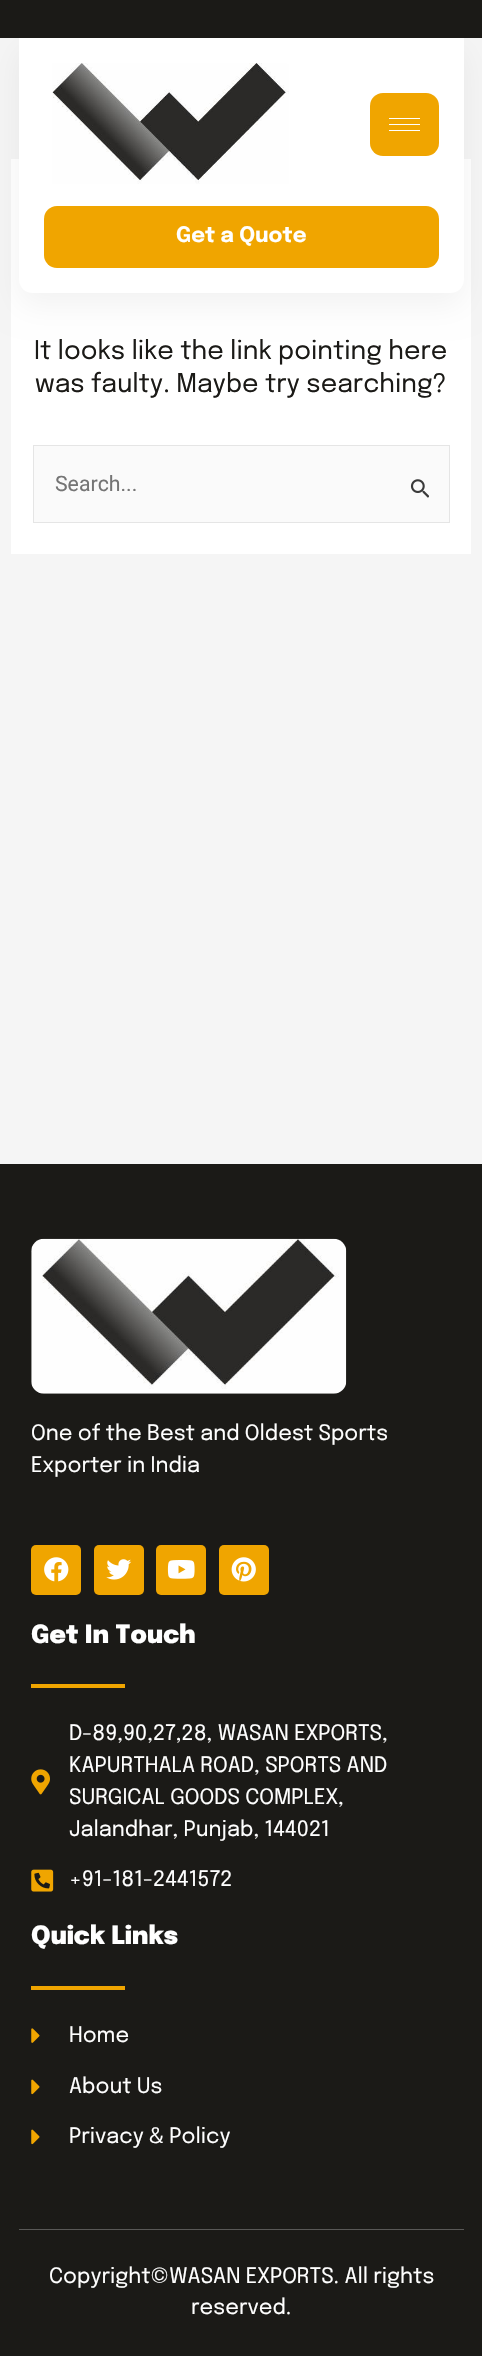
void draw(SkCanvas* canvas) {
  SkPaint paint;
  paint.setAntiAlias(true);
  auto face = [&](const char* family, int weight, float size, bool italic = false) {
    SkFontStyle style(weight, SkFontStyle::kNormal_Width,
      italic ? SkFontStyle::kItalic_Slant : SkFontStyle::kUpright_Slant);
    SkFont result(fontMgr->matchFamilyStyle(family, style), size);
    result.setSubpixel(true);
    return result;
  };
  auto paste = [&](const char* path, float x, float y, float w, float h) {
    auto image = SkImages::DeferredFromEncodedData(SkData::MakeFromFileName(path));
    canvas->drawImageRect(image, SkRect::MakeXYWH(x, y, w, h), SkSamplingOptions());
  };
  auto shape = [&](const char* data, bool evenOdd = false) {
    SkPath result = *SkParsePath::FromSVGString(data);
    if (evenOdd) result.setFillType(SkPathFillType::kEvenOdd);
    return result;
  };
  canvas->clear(0xfff5f5f5);
  paint.setColor(0xff1b1a17);
  canvas->drawRect(SkRect::MakeXYWH(0, 0, 482, 38), paint);
  paint.setColor(0xffffffff);
  canvas->drawRect(SkRect::MakeXYWH(11, 159, 460, 395), paint);
  paint.setColor(0x0d000000);
  paint.setMaskFilter(SkMaskFilter::MakeBlur(kNormal_SkBlurStyle, 15.5f));
  canvas->drawRoundRect(SkRect::MakeXYWH(19, 50, 445, 255), 13, 13, paint);
  paint.setMaskFilter(nullptr);
  paint.setColor(0xffffffff);
  canvas->drawPath(shape("M19 38H464V280C464 287 458 293 451 293H32C25 293 19 287 19 280Z"), paint);
  paste("img/1.png", 52, 63, 237, 121);
  paint.setColor(0xfff0a500);
  canvas->drawRoundRect(SkRect::MakeXYWH(370, 93, 69, 63), 13, 13, paint);
  {
    const struct { float x, y, w, h; SkColor color; } items[] = {
      {389, 118, 31, 1, 0xffffffff},
      {389, 124, 31, 1, 0xffffffff},
      {389, 130, 31, 1, 0xffffffff},
    };
    for (auto [x, y, w, h, color] : items) {
      paint.setColor(color);
      canvas->drawRect(SkRect::MakeXYWH(x, y, w, h), paint);
    }
  }
  paint.setColor(0xfff0a500);
  canvas->drawRoundRect(SkRect::MakeXYWH(44, 206, 395, 62), 13, 13, paint);
  paint.setColor(0xfffafafa);
  canvas->drawRect(SkRect::MakeXYWH(33.5f, 445.5f, 416, 77), paint);
  paint.setStroke(true);
  paint.setStrokeWidth(1);
  paint.setColor(0xffe5e5e5);
  canvas->drawRect(SkRect::MakeXYWH(33.5f, 445.5f, 416, 77), paint);
  paste("img/2.png", 410, 479, 19, 19);
  paint.setStroke(false);
  paint.setColor(0xff1b1a17);
  canvas->drawRect(SkRect::MakeXYWH(0, 1164, 482, 1192), paint);
  paste("img/3.png", 31, 1238, 316, 156);
  paint.setColor(0xfff0a500);
  canvas->drawRoundRect(SkRect::MakeXYWH(31, 1545, 50, 50), 5, 5, paint);
  paste("img/4.png", 44, 1557, 25, 25);
  canvas->drawRoundRect(SkRect::MakeXYWH(94, 1545, 50, 50), 5, 5, paint);
  paste("img/5.png", 106, 1559, 26, 21);
  canvas->drawRoundRect(SkRect::MakeXYWH(156, 1545, 50, 50), 5, 5, paint);
  paste("img/6.png", 167, 1560, 28, 19);
  canvas->drawRoundRect(SkRect::MakeXYWH(219, 1545, 50, 50), 5, 5, paint);
  paste("img/7.png", 231, 1557, 25, 25);
  canvas->drawRect(SkRect::MakeXYWH(31, 1684, 94, 4), paint);
  paste("img/8.png", 31, 1769, 19, 26);
  paste("img/9.png", 31, 1869, 23, 23);
  canvas->drawRect(SkRect::MakeXYWH(31, 1986, 94, 4), paint);
  paste("img/10.png", 31, 2028, 9, 15);
  paste("img/11.png", 31, 2079, 9, 16);
  paste("img/11.png", 31, 2129, 9, 16);
  paint.setColor(0xff595856);
  canvas->drawRect(SkRect::MakeXYWH(19, 2229, 445, 1), paint);
  auto f0 = face("Epilogue", 700, 21.25f);
  paint.setColor(0xffffffff);
  canvas->drawString("Get a Quote", 176, 242, f0, paint);
  auto f1 = face("Epilogue", 400, 25.6f);
  paint.setColor(0xff1b1a17);
  canvas->drawString("It looks like the link pointing here", 34, 359, f1, paint);
  canvas->drawString("was faulty. Maybe try searching?", 35, 392, f1, paint);
  auto f2 = face("Roboto", 400, 21.25f);
  paint.setColor(0xff757575);
  canvas->drawString("Search...", 55, 491, f2, paint);
  auto f3 = face("Epilogue", 400, 21.25f);
  paint.setColor(0xffffffff);
  canvas->drawString("One of the Best and Oldest Sports", 31, 1440, f3, paint);
  canvas->drawString("Exporter in India", 31, 1472, f3, paint);
  auto f4 = face("Epilogue", 900, 25);
  canvas->drawString("Get In Touch", 31, 1643, f4, paint);
  {
    const struct { const char* s; float x, y; } items[] = {
      {"D-89,90,27,28, WASAN EXPORTS,", 69, 1740},
      {"KAPURTHALA ROAD, SPORTS AND", 69, 1772},
      {"SURGICAL GOODS COMPLEX,", 69, 1804},
      {"Jalandhar, Punjab, 144021", 69, 1836},
      {"+91-181-2441572", 69, 1886},
    };
    for (auto [s, x, y] : items) {
      canvas->drawString(s, x, y, f3, paint);
    }
  }
  canvas->drawString("Quick Links", 31, 1944, f4, paint);
  {
    const struct { const char* s; float x, y; } items[] = {
      {"Home", 69, 2042},
      {"About Us", 69, 2093},
      {"Privacy & Policy", 69, 2143},
      {"Copyright©WASAN EXPORTS. All rights", 49, 2283},
      {"reserved.", 191, 2314},
    };
    for (auto [s, x, y] : items) {
      canvas->drawString(s, x, y, f3, paint);
    }
  }
}
